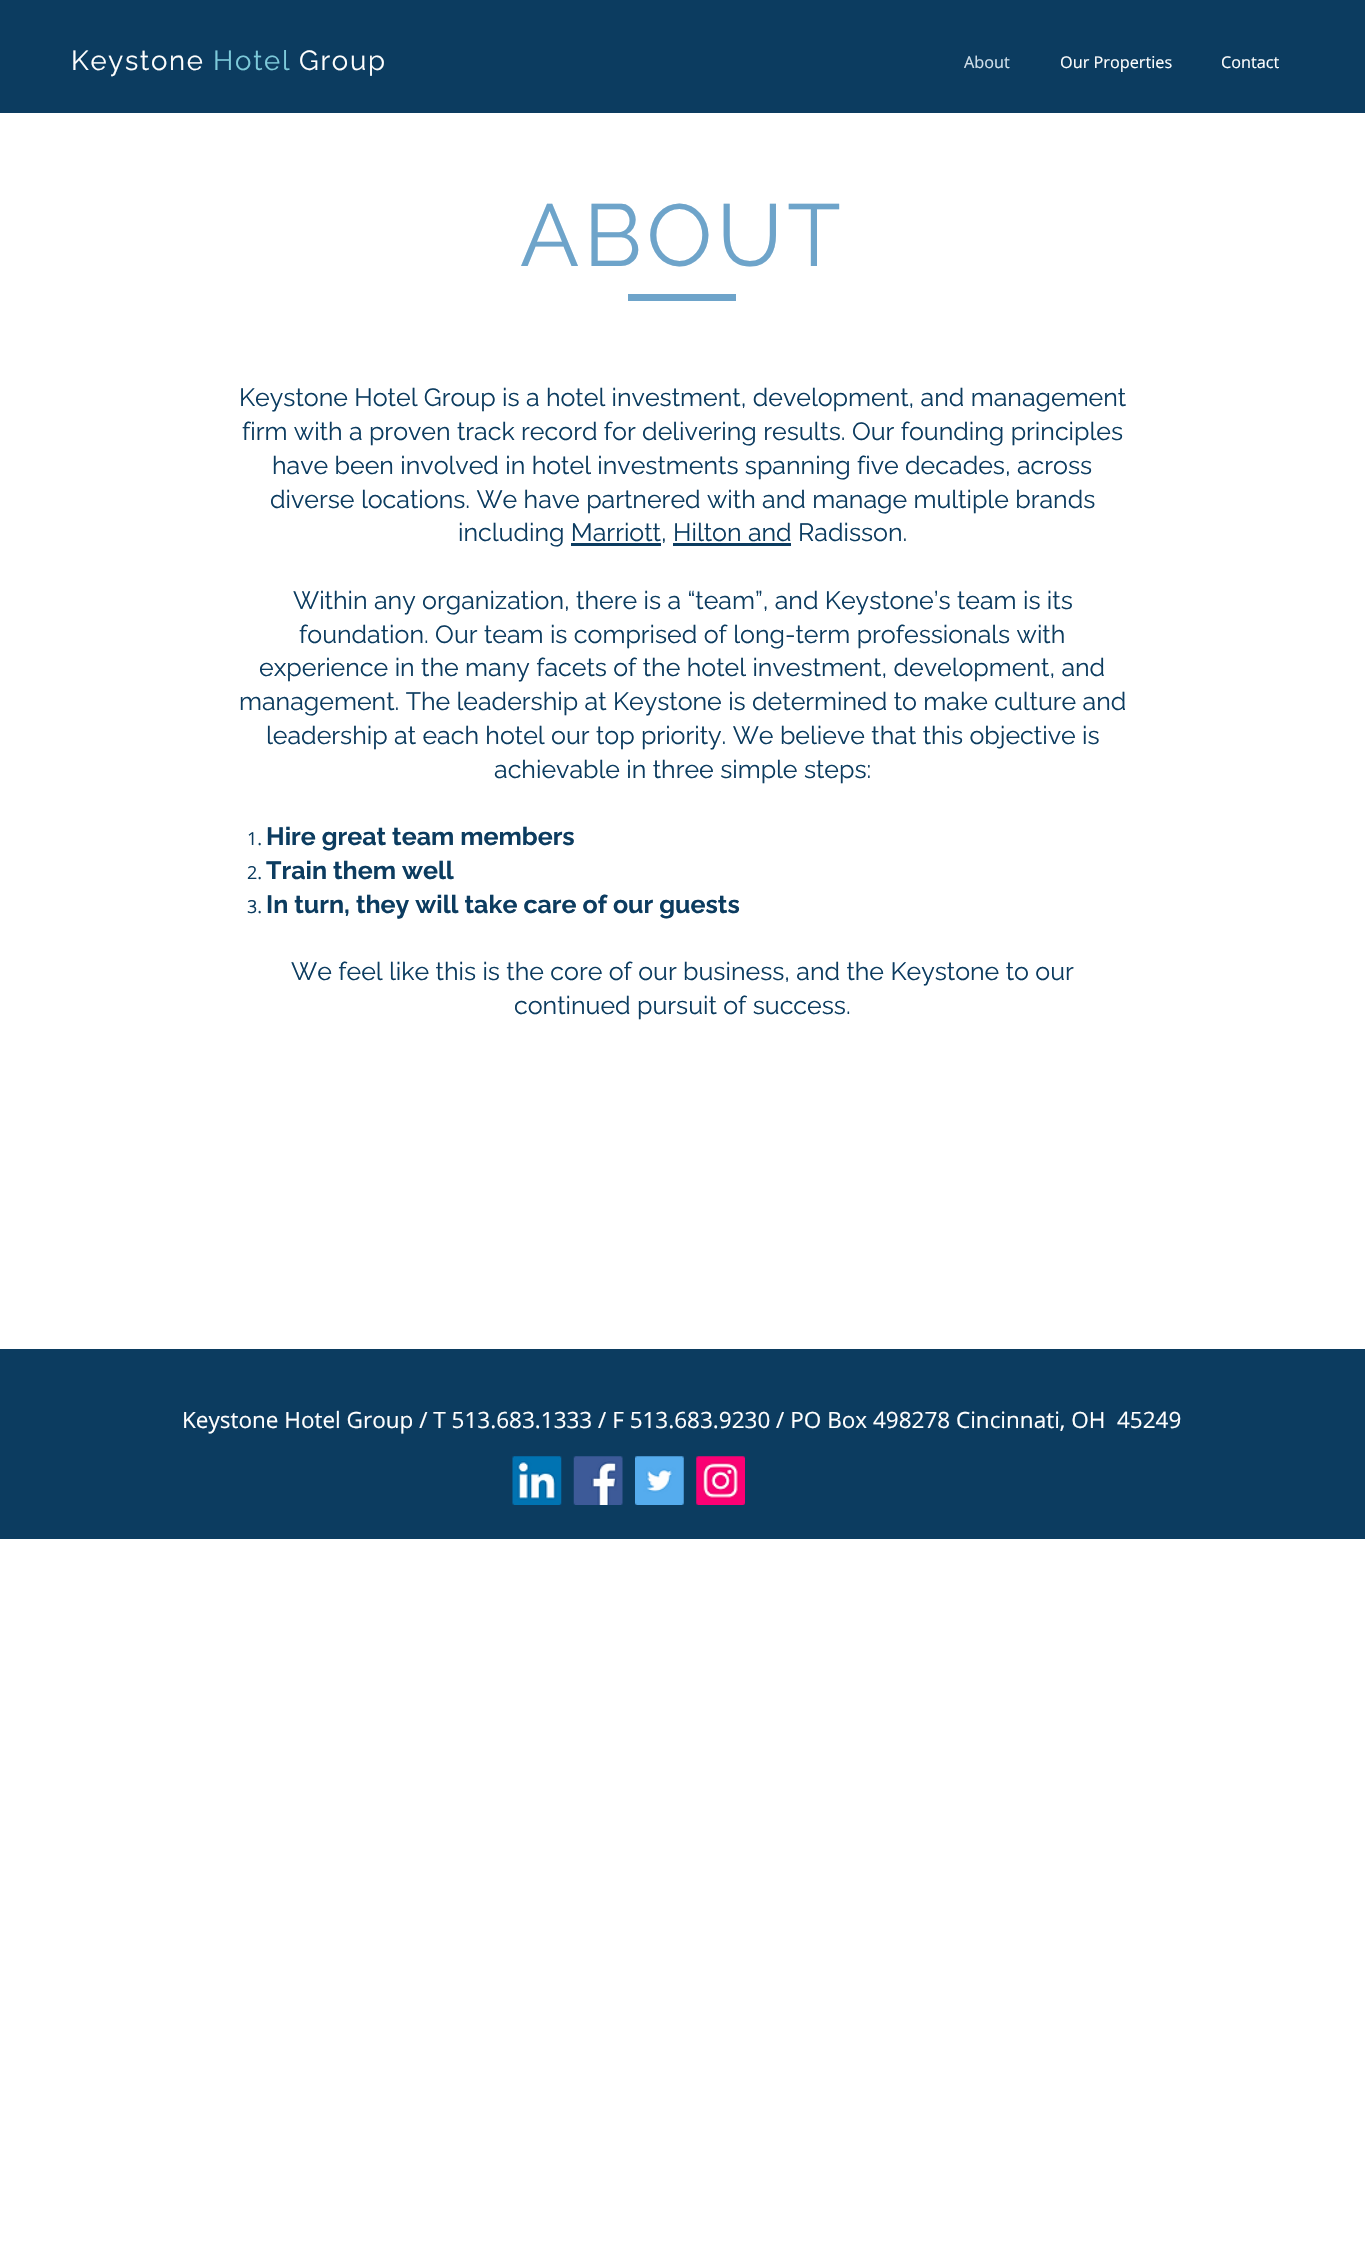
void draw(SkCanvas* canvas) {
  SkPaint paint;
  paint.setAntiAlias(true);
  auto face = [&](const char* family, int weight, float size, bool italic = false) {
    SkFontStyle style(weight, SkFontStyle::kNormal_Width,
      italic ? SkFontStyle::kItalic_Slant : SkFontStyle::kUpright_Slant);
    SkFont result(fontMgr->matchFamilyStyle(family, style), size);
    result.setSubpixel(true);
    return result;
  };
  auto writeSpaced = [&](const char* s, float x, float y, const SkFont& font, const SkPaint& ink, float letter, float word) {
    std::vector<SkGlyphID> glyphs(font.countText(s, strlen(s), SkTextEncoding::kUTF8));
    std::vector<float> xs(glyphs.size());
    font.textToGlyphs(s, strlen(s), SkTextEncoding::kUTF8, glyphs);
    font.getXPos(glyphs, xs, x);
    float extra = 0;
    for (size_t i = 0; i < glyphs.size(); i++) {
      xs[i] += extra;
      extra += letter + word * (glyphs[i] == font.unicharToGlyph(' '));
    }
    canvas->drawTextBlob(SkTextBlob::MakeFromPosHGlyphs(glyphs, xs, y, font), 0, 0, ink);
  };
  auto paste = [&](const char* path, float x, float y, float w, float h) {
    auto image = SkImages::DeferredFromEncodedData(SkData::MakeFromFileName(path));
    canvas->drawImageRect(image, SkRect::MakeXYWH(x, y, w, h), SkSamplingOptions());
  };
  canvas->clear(0xffffffff);
  {
    const struct { float x, y, w, h; SkColor color; } items[] = {
      {0, 0, 1365, 113, 0xff0c3c60},
      {628, 294, 108, 7, 0xff6ea4ca},
      {571, 543, 90, 3, 0xff0c3c60},
      {673, 543, 118, 3, 0xff0c3c60},
      {0, 1349, 1365, 190, 0xff0c3c60},
    };
    for (auto [x, y, w, h, color] : items) {
      paint.setColor(color);
      canvas->drawRect(SkRect::MakeXYWH(x, y, w, h), paint);
    }
  }
  paste("img/1.png", 512, 1456, 50, 49);
  paste("img/2.png", 573, 1456, 50, 49);
  paste("img/3.png", 635, 1456, 49, 49);
  paste("img/4.png", 696, 1456, 49, 49);
  auto f0 = face("Raleway", 400, 27.5f);
  paint.setColor(0xffffffff);
  writeSpaced("Keystone", 71, 70, f0, paint, 1.75f, 0);
  paint.setColor(0xff7dcada);
  writeSpaced("Hotel", 213, 70, f0, paint, 1.75f, 0);
  paint.setColor(0xffffffff);
  writeSpaced("Group", 299, 70, f0, paint, 1.75f, 0);
  auto f1 = face("Open Sans", 400, 16.25f);
  paint.setColor(0xffd1e0eb);
  canvas->drawString("About", 964, 68, f1, paint);
  paint.setColor(0xffffffff);
  canvas->drawString("Our Properties", 1060, 68, f1, paint);
  canvas->drawString("Contact", 1221, 68, f1, paint);
  auto f2 = face("Raleway", 400, 87.5f);
  paint.setColor(0xff6ea4ca);
  writeSpaced("ABOUT", 520, 266, f2, paint, 4.5f, 0);
  auto f3 = face("Raleway", 400, 25);
  paint.setColor(0xff0c3c60);
  {
    const struct { const char* s; float x, y; } items[] = {
      {"Keystone Hotel Group is a hotel investment, development, and management", 239, 406},
      {"firm with a proven track record for delivering results. Our founding principles", 242, 440},
      {"have been involved in hotel investments spanning five decades, across", 272, 474},
      {"diverse locations. We have partnered with and manage multiple brands", 270, 508},
      {"including Marriott, Hilton and Radisson.", 458, 541},
      {"Within any organization, there is a “team”, and Keystone’s team is its", 293, 609},
      {"foundation. Our team is comprised of long-term professionals with", 299, 643},
      {"experience in the many facets of the hotel investment, development, and", 259, 676},
      {"management. The leadership at Keystone is determined to make culture and", 239, 710},
      {"leadership at each hotel our top priority. We believe that this objective is", 266, 744},
      {"achievable in three simple steps:", 494, 778},
    };
    for (auto [s, x, y] : items) {
      canvas->drawString(s, x, y, f3, paint);
    }
  }
  auto f4 = face("Open Sans", 400, 18);
  canvas->drawString("1.", 247, 845, f4, paint);
  auto f5 = face("Raleway", 700, 25);
  canvas->drawString("Hire great team members", 266, 845, f5, paint);
  canvas->drawString("2.", 247, 879, f4, paint);
  canvas->drawString("Train them well", 266, 879, f5, paint);
  canvas->drawString("3.", 247, 913, f4, paint);
  canvas->drawString("In turn, they will take care of our guests", 266, 913, f5, paint);
  canvas->drawString("We feel like this is the core of our business, and the Keystone to our", 291, 980, f3, paint);
  canvas->drawString("continued pursuit of success.", 514, 1014, f3, paint);
  auto f6 = face("Open Sans", 400, 22.5f);
  paint.setColor(0xffffffff);
  canvas->drawString("Keystone Hotel Group / T 513.683.1333 / F 513.683.9230 / PO Box 498278 Cincinnati, OH  45249", 182, 1428, f6, paint);
}
